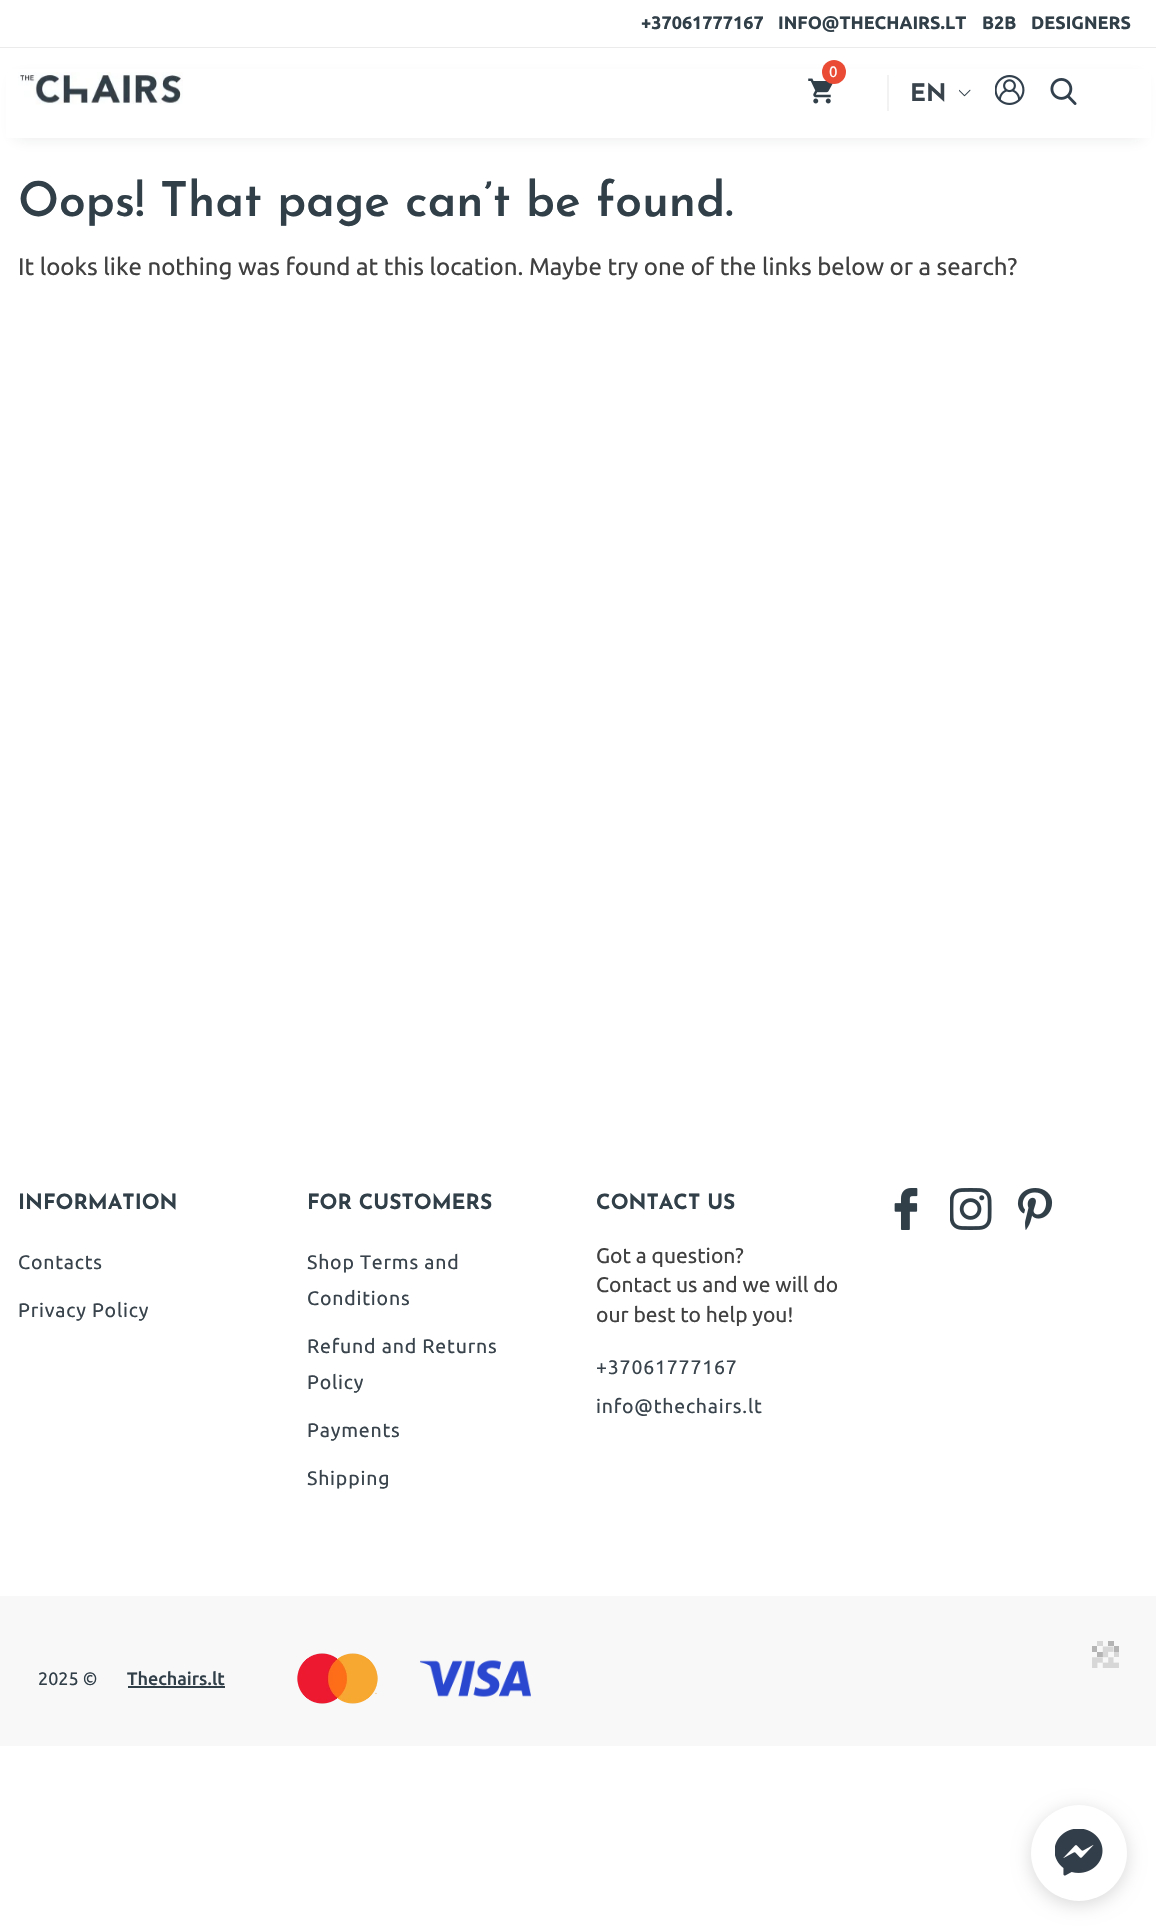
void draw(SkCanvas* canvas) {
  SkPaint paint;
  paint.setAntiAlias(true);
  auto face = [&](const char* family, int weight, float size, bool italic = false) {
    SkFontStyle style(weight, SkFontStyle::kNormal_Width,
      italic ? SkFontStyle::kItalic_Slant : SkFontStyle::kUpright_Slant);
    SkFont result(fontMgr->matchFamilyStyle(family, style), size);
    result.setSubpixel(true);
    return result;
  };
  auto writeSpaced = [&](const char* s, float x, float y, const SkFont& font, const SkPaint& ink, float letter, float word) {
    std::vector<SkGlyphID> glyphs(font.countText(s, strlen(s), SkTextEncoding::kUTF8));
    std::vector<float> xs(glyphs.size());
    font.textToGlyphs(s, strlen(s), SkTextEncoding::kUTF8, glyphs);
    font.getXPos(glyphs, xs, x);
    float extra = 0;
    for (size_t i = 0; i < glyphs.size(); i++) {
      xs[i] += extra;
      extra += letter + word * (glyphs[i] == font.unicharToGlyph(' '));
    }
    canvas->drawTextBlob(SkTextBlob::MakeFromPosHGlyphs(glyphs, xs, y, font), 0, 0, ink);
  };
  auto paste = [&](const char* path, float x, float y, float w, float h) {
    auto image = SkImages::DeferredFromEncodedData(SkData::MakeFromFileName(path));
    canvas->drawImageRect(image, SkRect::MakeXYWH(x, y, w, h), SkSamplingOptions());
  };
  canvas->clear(0xffffffff);
  paint.setColor(0xffebebeb);
  canvas->drawRect(SkRect::MakeXYWH(0, 47, 1156, 1), paint);
  paint.setColor(0x1a212326);
  paint.setMaskFilter(SkMaskFilter::MakeBlur(kNormal_SkBlurStyle, 7.5f));
  canvas->drawRect(SkRect::MakeXYWH(15, 78, 1127, 60), paint);
  paint.setMaskFilter(nullptr);
  paint.setColor(0xffffffff);
  canvas->drawRect(SkRect::MakeXYWH(6, 69, 1145, 69), paint);
  paste("img/1.png", 18, 72, 165, 33);
  paste("img/2.png", 808, 78, 25, 26);
  paint.setColor(0xffe94b35);
  canvas->drawCircle(834, 72, 12, paint);
  paint.setColor(0xfff2f2f2);
  canvas->drawRect(SkRect::MakeXYWH(887, 75, 2, 36), paint);
  paste("img/3.png", 959, 89, 12, 8);
  paste("img/4.png", 995, 75, 30, 30);
  paste("img/5.png", 1050, 78, 27, 27);
  paste("img/6.png", 894, 1188, 24, 42);
  paste("img/7.png", 950, 1188, 42, 42);
  paste("img/8.png", 1017, 1188, 36, 42);
  paint.setColor(0xfff8f8f9);
  canvas->drawRect(SkRect::MakeXYWH(0, 1596, 1156, 150), paint);
  paste("img/9.png", 1092, 1641, 27, 27);
  paint.setColor(0xff313f49);
  canvas->drawRect(SkRect::MakeXYWH(128, 1686, 97, 2), paint);
  paste("img/10.png", 297, 1653, 81, 51);
  paste("img/11.png", 420, 1660, 111, 37);
  paint.setColor(0x26000000);
  paint.setMaskFilter(SkMaskFilter::MakeBlur(kNormal_SkBlurStyle, 9));
  canvas->drawRoundRect(SkRect::MakeXYWH(1031, 1809, 96, 96), 48, 48, paint);
  paint.setMaskFilter(nullptr);
  paint.setColor(0xffffffff);
  canvas->drawCircle(1079, 1853, 48, paint);
  paste("img/12.png", 1055, 1829, 48, 47);
  auto f0 = face("Ubuntu", 700, 18);
  paint.setColor(0xff313f49);
  {
    const struct { const char* s; float x, y; } items[] = {
      {"+37061777167", 641, 29},
      {"INFO@THECHAIRS.LT", 778, 29},
      {"B2B", 982, 29},
      {"DESIGNERS", 1031, 29},
    };
    for (auto [s, x, y] : items) {
      canvas->drawString(s, x, y, f0, paint);
    }
  }
  auto f1 = face("Ubuntu", 400, 15);
  paint.setColor(0xffffffff);
  canvas->drawString("0", 829, 77, f1, paint);
  auto f2 = face("Josefin Sans", 700, 24);
  paint.setColor(0xff38434b);
  canvas->drawString("EN", 910, 101, f2, paint);
  auto f3 = face("Josefin Sans", 600, 48);
  paint.setColor(0xff313f49);
  canvas->drawString("Oops! That page can’t be found.", 18, 216, f3, paint);
  auto f4 = face("Ubuntu", 400, 24);
  paint.setColor(0xff404040);
  canvas->drawString("It looks like nothing was found at this location. Maybe try one of the links below or a search?", 18, 275, f4, paint);
  auto f5 = face("Josefin Sans", 700, 21);
  paint.setColor(0xff313f49);
  canvas->drawString("INFORMATION", 18, 1209, f5, paint);
  auto f6 = face("Ubuntu", 400, 19.5f);
  paint.setColor(0xff38434b);
  writeSpaced("Contacts", 18, 1269, f6, paint, 0.8f, 0);
  writeSpaced("Privacy Policy", 18, 1317, f6, paint, 0.8f, 0);
  paint.setColor(0xff313f49);
  canvas->drawString("FOR CUSTOMERS", 307, 1209, f5, paint);
  paint.setColor(0xff38434b);
  {
    const struct { const char* s; float x, y; } items[] = {
      {"Shop Terms and", 307, 1269},
      {"Conditions", 307, 1305},
      {"Refund and Returns", 307, 1353},
      {"Policy", 307, 1389},
      {"Payments", 307, 1437},
      {"Shipping", 307, 1485},
    };
    for (auto [s, x, y] : items) {
      writeSpaced(s, x, y, f6, paint, 0.8f, 0);
    }
  }
  paint.setColor(0xff313f49);
  canvas->drawString("CONTACT US", 596, 1209, f5, paint);
  auto f7 = face("Ubuntu", 400, 21);
  paint.setColor(0xff404040);
  {
    const struct { const char* s; float x, y; } items[] = {
      {"Got a question?", 596, 1263},
      {"Contact us and we will do", 596, 1292},
      {"our best to help you!", 596, 1322},
    };
    for (auto [s, x, y] : items) {
      canvas->drawString(s, x, y, f7, paint);
    }
  }
  paint.setColor(0xff38434b);
  writeSpaced("+37061777167", 596, 1374, f6, paint, 0.8f, 0);
  writeSpaced("info@thechairs.lt", 596, 1413, f6, paint, 0.8f, 0);
  auto f8 = face("Ubuntu", 400, 18);
  paint.setColor(0xff313f49);
  canvas->drawString("2025 ©", 38, 1685, f8, paint);
  auto f9 = face("Ubuntu", 500, 18);
  canvas->drawString("Thechairs.lt", 127, 1685, f9, paint);
}
